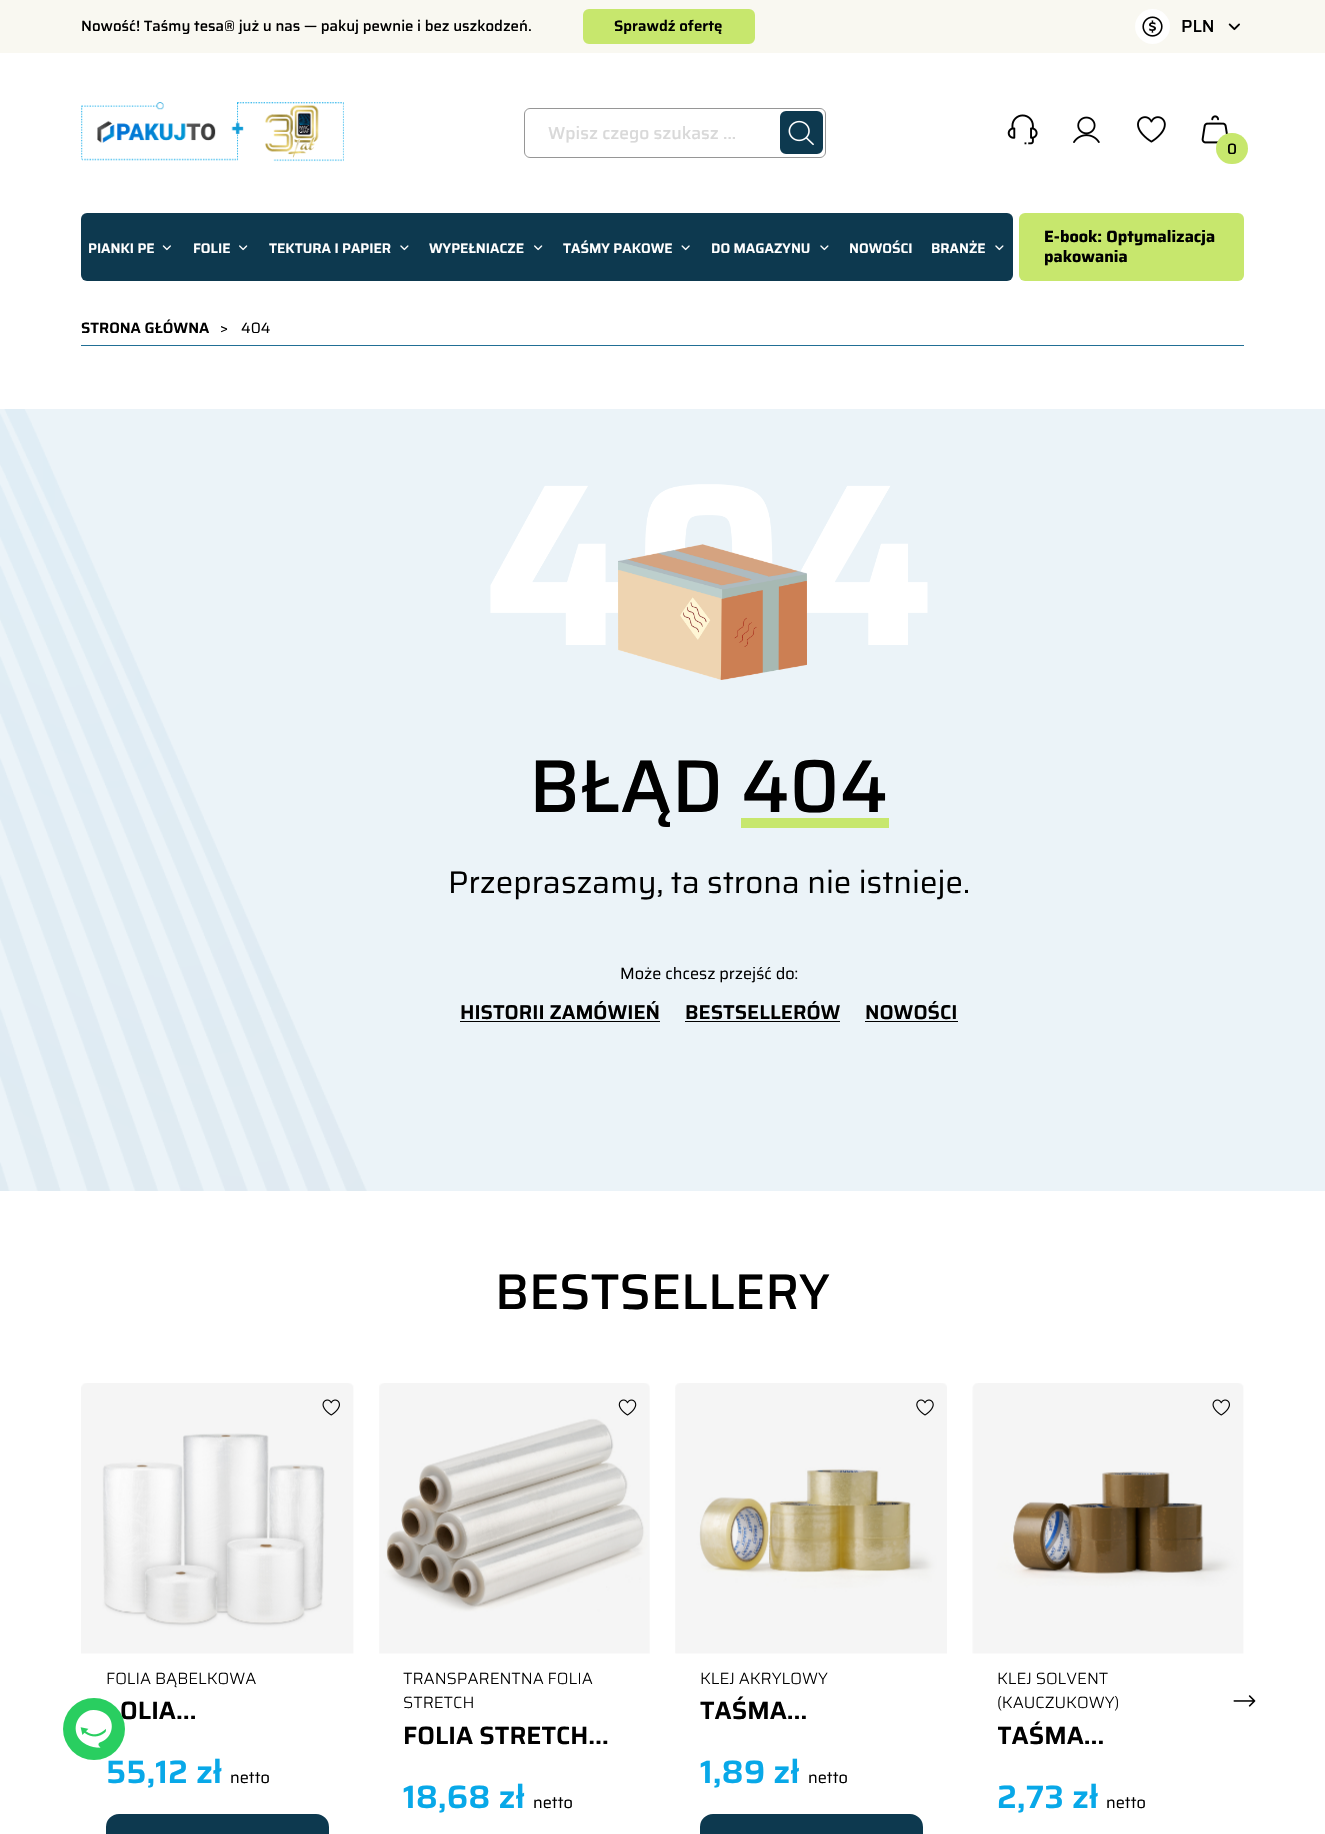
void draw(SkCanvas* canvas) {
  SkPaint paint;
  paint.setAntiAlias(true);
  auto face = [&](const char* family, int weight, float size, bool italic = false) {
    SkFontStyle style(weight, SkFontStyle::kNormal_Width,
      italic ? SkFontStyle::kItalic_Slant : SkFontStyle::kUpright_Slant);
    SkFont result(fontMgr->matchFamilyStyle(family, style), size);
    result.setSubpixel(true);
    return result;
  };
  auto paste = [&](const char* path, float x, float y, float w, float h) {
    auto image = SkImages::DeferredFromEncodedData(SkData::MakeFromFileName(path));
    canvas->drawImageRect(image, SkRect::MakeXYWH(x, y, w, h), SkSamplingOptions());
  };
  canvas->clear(0xffffffff);
  paint.setColor(0xfff9f8f1);
  canvas->drawRect(SkRect::MakeXYWH(0, 0, 1325, 53), paint);
  paint.setColor(0xffc7e76d);
  canvas->drawRoundRect(SkRect::MakeXYWH(584.5f, 10.5f, 169, 32), 4.5f, 4.5f, paint);
  paint.setStroke(true);
  paint.setStrokeWidth(3);
  canvas->drawRoundRect(SkRect::MakeXYWH(584.5f, 10.5f, 169, 32), 4.5f, 4.5f, paint);
  paint.setStroke(false);
  paint.setColor(0xffffffff);
  canvas->drawCircle(1152.5f, 26.5f, 17.5f, paint);
  paste("img/1.png", 1142, 16, 21, 21);
  paste("img/2.png", 1228, 23, 12, 8);
  paste("img/3.png", 81, 102, 263, 60);
  paint.setStroke(true);
  paint.setStrokeWidth(1);
  paint.setColor(0xff969696);
  canvas->drawRoundRect(SkRect::MakeXYWH(524.5f, 108.5f, 301, 49), 5.5f, 5.5f, paint);
  paint.setStroke(false);
  paint.setColor(0xff0d394f);
  canvas->drawRoundRect(SkRect::MakeXYWH(781.5f, 112.5f, 40, 40), 4.5f, 4.5f, paint);
  paint.setStroke(true);
  paint.setStrokeWidth(3);
  canvas->drawRoundRect(SkRect::MakeXYWH(781.5f, 112.5f, 40, 40), 4.5f, 4.5f, paint);
  paste("img/4.png", 788, 120, 26, 26);
  paste("img/5.png", 1007, 114, 31, 31);
  paste("img/6.png", 1073, 116, 27, 27);
  paste("img/7.png", 1137, 116, 29, 27);
  paste("img/8.png", 1201, 115, 27, 29);
  paint.setStroke(false);
  paint.setColor(0xffc7e76d);
  canvas->drawRoundRect(SkRect::MakeXYWH(1216, 133, 32, 31), 15.5f, 15.5f, paint);
  paint.setColor(0xff0d394f);
  canvas->drawRoundRect(SkRect::MakeXYWH(81, 213, 932, 68), 6, 6, paint);
  paste("img/9.png", 162, 245, 9, 6);
  paste("img/10.png", 239, 245, 9, 6);
  paste("img/11.png", 400, 245, 9, 6);
  paste("img/10.png", 534, 245, 9, 6);
  paste("img/12.png", 681, 245, 9, 6);
  paste("img/11.png", 820, 245, 9, 6);
  paste("img/11.png", 995, 245, 9, 6);
  paint.setColor(0xffc7e76d);
  canvas->drawRoundRect(SkRect::MakeXYWH(1019, 213, 225, 68), 6, 6, paint);
  paint.setColor(0xff216f95);
  canvas->drawRect(SkRect::MakeXYWH(81, 345, 1163, 1), paint);
  paint.setColor(0xffebf3f8);
  canvas->drawRect(SkRect::MakeXYWH(0, 409, 1325, 782), paint);
  paste("img/13.png", 0, 409, 367, 782);
  paste("img/14.png", 490, 484, 438, 196);
  {
    const struct { float x, y, w, h; SkColor color; } items[] = {
      {460, 1021, 200, 1, 0xff000000},
      {685, 1021, 155, 1, 0xff000000},
      {865, 1021, 93, 1, 0xff000000},
    };
    for (auto [x, y, w, h, color] : items) {
      paint.setColor(color);
      canvas->drawRect(SkRect::MakeXYWH(x, y, w, h), paint);
    }
  }
  paste("img/15.png", 81, 1383, 273, 271);
  paste("img/16.png", 322, 1399, 18, 17);
  paint.setColor(0xff0d394f);
  canvas->drawRoundRect(SkRect::MakeXYWH(107.5f, 1815.5f, 220, 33), 11.5f, 11.5f, paint);
  paint.setStroke(true);
  canvas->drawRoundRect(SkRect::MakeXYWH(107.5f, 1815.5f, 220, 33), 11.5f, 11.5f, paint);
  paste("img/17.png", 379, 1383, 271, 271);
  paste("img/18.png", 618, 1399, 19, 17);
  paste("img/19.png", 675, 1383, 272, 271);
  paste("img/20.png", 916, 1399, 18, 17);
  paint.setStroke(false);
  canvas->drawRoundRect(SkRect::MakeXYWH(701.5f, 1815.5f, 220, 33), 11.5f, 11.5f, paint);
  paint.setStroke(true);
  canvas->drawRoundRect(SkRect::MakeXYWH(701.5f, 1815.5f, 220, 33), 11.5f, 11.5f, paint);
  paste("img/21.png", 972, 1383, 272, 271);
  paste("img/16.png", 1212, 1399, 18, 17);
  paste("img/22.png", 1233, 1695, 23, 12);
  auto f0 = face("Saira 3", 100, 15);
  paint.setStroke(false);
  paint.setColor(0xff000000);
  canvas->drawString("Nowość! Taśmy tesa® już u nas — pakuj pewnie i bez uszkodzeń.", 81, 31, f0, paint);
  auto f1 = face("Saira", 100, 15);
  canvas->drawString("Sprawdź ofertę", 614, 31, f1, paint);
  auto f2 = face("Saira 3", 100, 17.5f);
  canvas->drawString("PLN", 1181, 32, f2, paint);
  paint.setColor(0xffd9d9d9);
  canvas->drawString("Wpisz czego szukasz ...", 548, 139, f2, paint);
  paint.setColor(0xff000000);
  canvas->drawString("0", 1227, 154, f0, paint);
  auto f3 = face("Saira", 100, 13.75f);
  paint.setColor(0xffffffff);
  {
    const struct { const char* s; float x, y; } items[] = {
      {"PIANKI PE", 88, 253},
      {"FOLIE", 193, 253},
      {"TEKTURA I PAPIER", 269, 253},
      {"WYPEŁNIACZE", 429, 253},
      {"TAŚMY PAKOWE", 563, 253},
      {"DO MAGAZYNU", 711, 253},
      {"NOWOŚCI", 849, 253},
      {"BRANŻE", 931, 253},
    };
    for (auto [s, x, y] : items) {
      canvas->drawString(s, x, y, f3, paint);
    }
  }
  auto f4 = face("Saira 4", 100, 16.25f);
  paint.setColor(0xff000000);
  canvas->drawString("E-book: Optymalizacja", 1044, 242, f4, paint);
  canvas->drawString("pakowania", 1044, 262, f4, paint);
  canvas->drawString("STRONA GŁÓWNA", 81, 333, f1, paint);
  auto f5 = face("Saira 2", 100, 15);
  canvas->drawString(">", 220, 333, f5, paint);
  canvas->drawString("404", 241, 333, f5, paint);
  auto f6 = face("Saira 3", 100, 75);
  canvas->drawString("BŁĄD 404", 529, 812, f6, paint);
  paint.setColor(0xffc7e76d);
  canvas->drawRect(SkRect::MakeXYWH(741, 818, 148, 10), paint);
  auto f7 = face("Saira 2", 100, 31.25f);
  paint.setColor(0xff000000);
  canvas->drawString("Przepraszamy, ta strona nie istnieje.", 448, 893, f7, paint);
  auto f8 = face("Saira 2", 100, 16.25f);
  canvas->drawString("Może chcesz przejść do:", 620, 979, f8, paint);
  auto f9 = face("Saira", 100, 20);
  {
    const struct { const char* s; float x, y; } items[] = {
      {"HISTORII ZAMÓWIEŃ", 460, 1019},
      {"BESTSELLERÓW", 685, 1019},
      {"NOWOŚCI", 865, 1019},
    };
    for (auto [s, x, y] : items) {
      canvas->drawString(s, x, y, f9, paint);
    }
  }
  auto f10 = face("Saira 3", 100, 50);
  canvas->drawString("BESTSELLERY", 495, 1309, f10, paint);
  auto f11 = face("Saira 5", 100, 16.25f);
  canvas->drawString("FOLIA BĄBELKOWA", 106, 1684, f11, paint);
  auto f12 = face("Saira", 100, 25);
  canvas->drawString("OLIA…", 120, 1719, f12, paint);
  auto f13 = face("Saira", 100, 32.5f);
  paint.setColor(0xff08a8e8);
  canvas->drawString("55,12 zł", 106, 1783, f13, paint);
  paint.setColor(0xff000000);
  canvas->drawString("netto", 230, 1783, f8, paint);
  canvas->drawString("TRANSPARENTNA FOLIA", 403, 1684, f11, paint);
  canvas->drawString("STRETCH", 403, 1708, f11, paint);
  canvas->drawString("FOLIA STRETCH…", 403, 1744, f12, paint);
  paint.setColor(0xff08a8e8);
  canvas->drawString("18,68 zł", 403, 1808, f13, paint);
  paint.setColor(0xff000000);
  canvas->drawString("netto", 533, 1808, f8, paint);
  canvas->drawString("KLEJ AKRYLOWY", 700, 1684, f11, paint);
  canvas->drawString("TAŚMA…", 700, 1719, f12, paint);
  paint.setColor(0xff08a8e8);
  canvas->drawString("1,89 zł", 700, 1783, f13, paint);
  paint.setColor(0xff000000);
  canvas->drawString("netto", 808, 1783, f8, paint);
  canvas->drawString("KLEJ SOLVENT", 997, 1684, f11, paint);
  canvas->drawString("(KAUCZUKOWY)", 997, 1708, f11, paint);
  canvas->save();
  canvas->clipRect(SkRect::MakeXYWH(998, 1715, 221, 40));
  canvas->drawString("TAŚMA…", 997, 1744, f12, paint);
  canvas->restore();
  paint.setColor(0xff08a8e8);
  canvas->drawString("2,73 zł", 997, 1808, f13, paint);
  paint.setColor(0xff000000);
  canvas->drawString("netto", 1106, 1808, f8, paint);
  paint.setColor(0xff29ce60);
  canvas->drawCircle(94, 1729, 31, paint);
  paste("img/23.png", 75, 1710, 37, 38);
}
